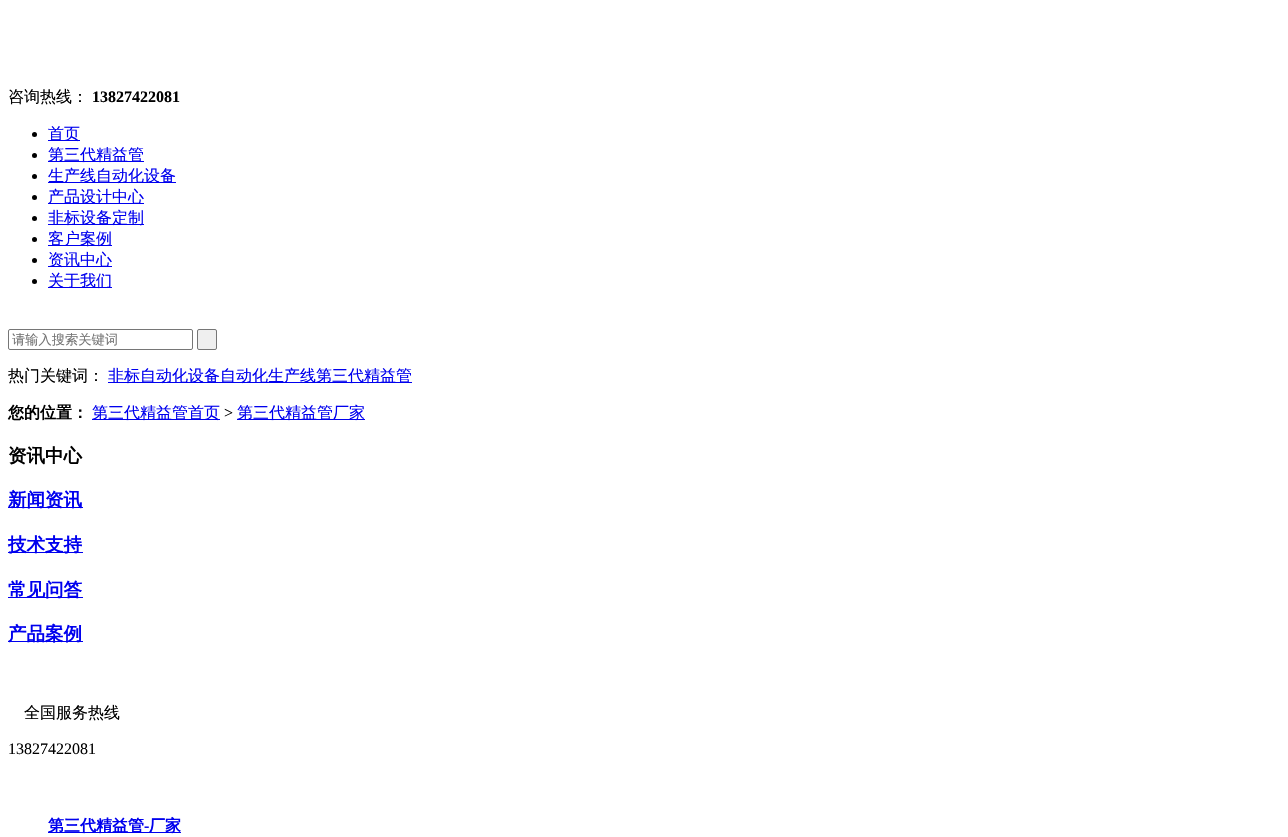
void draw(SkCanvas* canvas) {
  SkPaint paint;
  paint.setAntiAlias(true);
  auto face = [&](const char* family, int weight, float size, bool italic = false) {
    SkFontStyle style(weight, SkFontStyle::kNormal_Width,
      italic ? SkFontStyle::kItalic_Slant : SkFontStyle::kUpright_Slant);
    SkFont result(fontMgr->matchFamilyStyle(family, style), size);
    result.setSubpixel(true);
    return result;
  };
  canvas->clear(0xffffffff);
  paint.setColor(0xff000000);
  canvas->drawCircle(34.5f, 134.5f, 2.5f, paint);
  paint.setColor(0xff0000ee);
  canvas->drawRect(SkRect::MakeXYWH(48, 140, 32, 1), paint);
  paint.setColor(0xff000000);
  canvas->drawCircle(34.5f, 155.5f, 2.5f, paint);
  paint.setColor(0xff0000ee);
  canvas->drawRect(SkRect::MakeXYWH(48, 161, 96, 1), paint);
  paint.setColor(0xff000000);
  canvas->drawCircle(34.5f, 176.5f, 2.5f, paint);
  paint.setColor(0xff0000ee);
  canvas->drawRect(SkRect::MakeXYWH(48, 182, 128, 1), paint);
  paint.setColor(0xff000000);
  canvas->drawCircle(34.5f, 197.5f, 2.5f, paint);
  paint.setColor(0xff0000ee);
  canvas->drawRect(SkRect::MakeXYWH(48, 203, 96, 1), paint);
  paint.setColor(0xff000000);
  canvas->drawCircle(34.5f, 218.5f, 2.5f, paint);
  paint.setColor(0xff0000ee);
  canvas->drawRect(SkRect::MakeXYWH(48, 224, 96, 1), paint);
  paint.setColor(0xff000000);
  canvas->drawCircle(34.5f, 239.5f, 2.5f, paint);
  paint.setColor(0xff0000ee);
  canvas->drawRect(SkRect::MakeXYWH(48, 245, 64, 1), paint);
  paint.setColor(0xff000000);
  canvas->drawCircle(34.5f, 260.5f, 2.5f, paint);
  paint.setColor(0xff0000ee);
  canvas->drawRect(SkRect::MakeXYWH(48, 266, 64, 1), paint);
  paint.setColor(0xff000000);
  canvas->drawCircle(34.5f, 281.5f, 2.5f, paint);
  paint.setColor(0xff0000ee);
  canvas->drawRect(SkRect::MakeXYWH(48, 287, 64, 1), paint);
  paint.setStroke(true);
  paint.setStrokeWidth(1);
  paint.setColor(0xff767676);
  canvas->drawRoundRect(SkRect::MakeXYWH(8.5f, 329.5f, 184, 20), 1.5f, 1.5f, paint);
  paint.setStroke(false);
  paint.setColor(0xffefefef);
  canvas->drawRoundRect(SkRect::MakeXYWH(197.5f, 329.5f, 19, 20), 1.5f, 1.5f, paint);
  paint.setStroke(true);
  paint.setColor(0xff767676);
  canvas->drawRoundRect(SkRect::MakeXYWH(197.5f, 329.5f, 19, 20), 1.5f, 1.5f, paint);
  paint.setStroke(false);
  {
    const struct { float x, y, w, h; SkColor color; } items[] = {
      {108, 382, 304, 1, 0xff0000ee},
      {92, 419, 128, 1, 0xff0000ee},
      {237, 419, 128, 1, 0xff0000ee},
      {8, 507, 75, 1, 0xff0000ee},
      {8, 552, 75, 1, 0xff0000ee},
      {8, 597, 75, 1, 0xff0000ee},
      {8, 641, 75, 1, 0xff0000ee},
      {48, 832, 133, 1, 0xff0000ee},
    };
    for (auto [x, y, w, h, color] : items) {
      paint.setColor(color);
      canvas->drawRect(SkRect::MakeXYWH(x, y, w, h), paint);
    }
  }
  auto f0 = face("WenQuanYi Zen Hei", 500, 16);
  paint.setColor(0xff000000);
  canvas->drawString("咨询热线：", 8, 102, f0, paint);
  auto f1 = face("Liberation Serif", 700, 16);
  canvas->drawString("13827422081", 92, 102, f1, paint);
  paint.setColor(0xff0000ee);
  {
    const struct { const char* s; float x, y; } items[] = {
      {"首页", 48, 139},
      {"第三代精益管", 48, 160},
      {"生产线自动化设备", 48, 181},
      {"产品设计中心", 48, 202},
      {"非标设备定制", 48, 223},
      {"客户案例", 48, 244},
      {"资讯中心", 48, 265},
      {"关于我们", 48, 286},
    };
    for (auto [s, x, y] : items) {
      canvas->drawString(s, x, y, f0, paint);
    }
  }
  auto f2 = face("WenQuanYi Zen Hei", 500, 13.25f);
  paint.setColor(0xff757575);
  canvas->drawString("请输入搜索关键词", 12, 344, f2, paint);
  paint.setColor(0xff000000);
  canvas->drawString("热门关键词：", 8, 381, f0, paint);
  paint.setColor(0xff0000ee);
  canvas->drawString("非标自动化设备自动化生产线第三代精益管", 108, 381, f0, paint);
  auto f3 = face("WenQuanYi Zen Hei", 700, 16);
  paint.setColor(0xff000000);
  canvas->drawString("您的位置：", 8, 418, f3, paint);
  paint.setColor(0xff0000ee);
  canvas->drawString("第三代精益管首页", 92, 418, f0, paint);
  auto f4 = face("Liberation Serif", 400, 16);
  paint.setColor(0xff000000);
  canvas->drawString(">", 224, 418, f4, paint);
  paint.setColor(0xff0000ee);
  canvas->drawString("第三代精益管厂家", 237, 418, f0, paint);
  auto f5 = face("WenQuanYi Zen Hei", 700, 18.5f);
  paint.setColor(0xff000000);
  canvas->drawString("资讯中心", 8, 462, f5, paint);
  paint.setColor(0xff0000ee);
  {
    const struct { const char* s; float x, y; } items[] = {
      {"新闻资讯", 8, 506},
      {"技术支持", 8, 551},
      {"常见问答", 8, 596},
      {"产品案例", 8, 640},
    };
    for (auto [s, x, y] : items) {
      canvas->drawString(s, x, y, f5, paint);
    }
  }
  paint.setColor(0xff000000);
  canvas->drawString("全国服务热线", 24, 718, f0, paint);
  canvas->drawString("13827422081", 8, 754, f4, paint);
  paint.setColor(0xff0000ee);
  canvas->drawString("第三代精益管", 48, 831, f3, paint);
  canvas->drawString("-", 144, 831, f1, paint);
  canvas->drawString("厂家", 149, 831, f3, paint);
}
